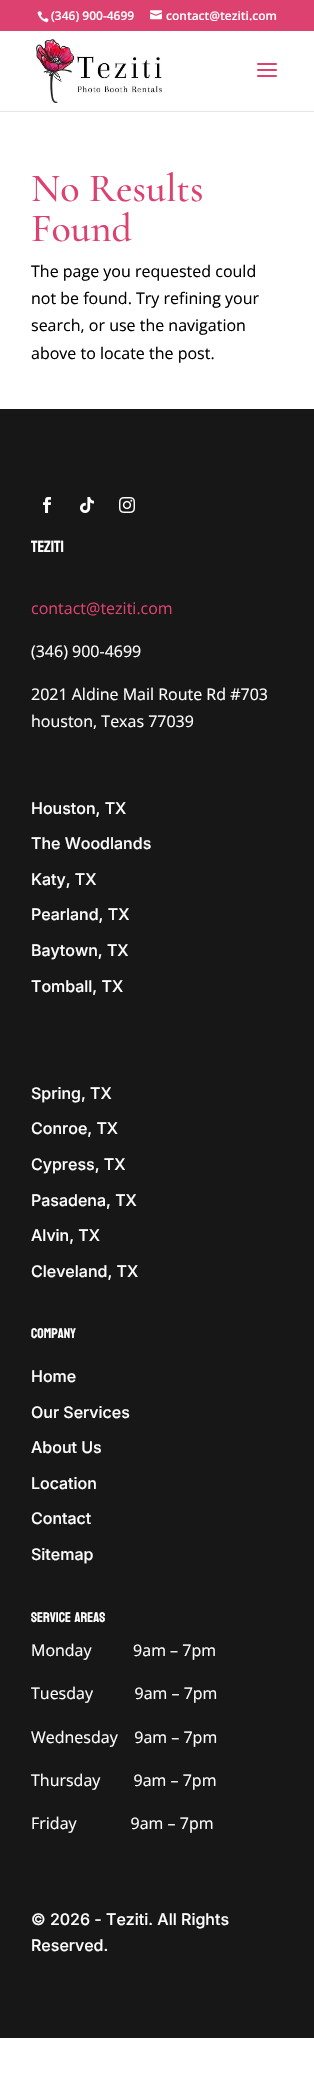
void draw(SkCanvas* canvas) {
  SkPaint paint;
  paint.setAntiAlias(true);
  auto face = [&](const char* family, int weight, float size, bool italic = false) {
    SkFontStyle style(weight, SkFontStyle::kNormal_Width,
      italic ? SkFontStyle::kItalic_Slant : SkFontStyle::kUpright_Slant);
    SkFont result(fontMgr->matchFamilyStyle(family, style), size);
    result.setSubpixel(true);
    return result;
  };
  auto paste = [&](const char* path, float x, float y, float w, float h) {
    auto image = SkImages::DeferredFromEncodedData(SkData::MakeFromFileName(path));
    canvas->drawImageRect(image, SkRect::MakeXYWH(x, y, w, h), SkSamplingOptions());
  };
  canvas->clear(0xffffffff);
  paint.setColor(0xffdc416f);
  canvas->drawRect(SkRect::MakeXYWH(0, 0, 314, 31), paint);
  paste("img/1.png", 37, 11, 12, 12);
  paste("img/2.png", 150, 10, 12, 10);
  paint.setColor(0xffe6e6e6);
  canvas->drawRect(SkRect::MakeXYWH(0, 111, 314, 1), paint);
  paste("img/3.png", 36, 39, 126, 64);
  paste("img/4.png", 257, 63, 20, 14);
  paint.setColor(0xff171717);
  canvas->drawRect(SkRect::MakeXYWH(0, 409, 314, 1629), paint);
  paste("img/5.png", 43, 497, 8, 16);
  paste("img/6.png", 80, 497, 14, 16);
  paste("img/7.png", 119, 497, 16, 16);
  auto f0 = face("Open Sans", 600, 12);
  paint.setColor(0xffffffff);
  canvas->drawString("(346) 900-4699", 51, 20, f0, paint);
  canvas->drawString("contact@teziti.com", 166, 20, f0, paint);
  auto f1 = face("Cormorant Garamond", 300, 40);
  paint.setColor(0xffdc416f);
  canvas->drawString("No Results", 31, 201, f1, paint);
  canvas->drawString("Found", 31, 241, f1, paint);
  auto f2 = face("Open Sans", 400, 16);
  paint.setColor(0xff000000);
  {
    const struct { const char* s; float x, y; } items[] = {
      {"The page you requested could", 31, 277},
      {"not be found. Try refining your", 31, 304},
      {"search, or use the navigation", 31, 331},
      {"above to locate the post.", 31, 359},
    };
    for (auto [s, x, y] : items) {
      canvas->drawString(s, x, y, f2, paint);
    }
  }
  auto f3 = face("Bayon", 400, 16);
  paint.setColor(0xffffffff);
  canvas->drawString("tEZITI", 31, 552, f3, paint);
  paint.setColor(0xffdc416f);
  canvas->drawString("contact@teziti.com", 31, 614, f2, paint);
  paint.setColor(0xffffffff);
  {
    const struct { const char* s; float x, y; } items[] = {
      {"(346) 900-4699", 31, 657},
      {"2021 Aldine Mail Route Rd #703", 31, 700},
      {"houston, Texas 77039", 31, 727},
    };
    for (auto [s, x, y] : items) {
      canvas->drawString(s, x, y, f2, paint);
    }
  }
  auto f4 = face("Inter", 500, 16);
  {
    const struct { const char* s; float x, y; } items[] = {
      {"Houston, TX", 31, 814},
      {"The Woodlands", 31, 849},
      {"Katy, TX", 31, 885},
      {"Pearland, TX", 31, 920},
      {"Baytown, TX", 31, 956},
      {"Tomball, TX", 31, 992},
      {"Spring, TX", 31, 1099},
      {"Conroe, TX", 31, 1134},
      {"Cypress, TX", 31, 1170},
      {"Pasadena, TX", 31, 1206},
      {"Alvin, TX", 31, 1241},
      {"Cleveland, TX", 31, 1277},
    };
    for (auto [s, x, y] : items) {
      canvas->drawString(s, x, y, f4, paint);
    }
  }
  auto f5 = face("Bayon", 400, 14);
  canvas->drawString("Company", 31, 1338, f5, paint);
  {
    const struct { const char* s; float x, y; } items[] = {
      {"Home", 31, 1382},
      {"Our Services", 31, 1418},
      {"About Us", 31, 1453},
      {"Location", 31, 1489},
      {"Contact", 31, 1524},
      {"Sitemap", 31, 1560},
    };
    for (auto [s, x, y] : items) {
      canvas->drawString(s, x, y, f4, paint);
    }
  }
  canvas->drawString("SERVICE AREAS", 31, 1622, f5, paint);
  {
    const struct { const char* s; float x, y; } items[] = {
      {"Monday          9am – 7pm", 31, 1656},
      {"Tuesday          9am – 7pm", 31, 1699},
      {"Wednesday    9am – 7pm", 31, 1743},
      {"Thursday        9am – 7pm", 31, 1786},
      {"Friday             9am – 7pm", 31, 1829},
    };
    for (auto [s, x, y] : items) {
      canvas->drawString(s, x, y, f2, paint);
    }
  }
  canvas->drawString("© 2026 - Teziti. All Rights", 31, 1925, f4, paint);
  canvas->drawString("Reserved.", 31, 1951, f4, paint);
}
